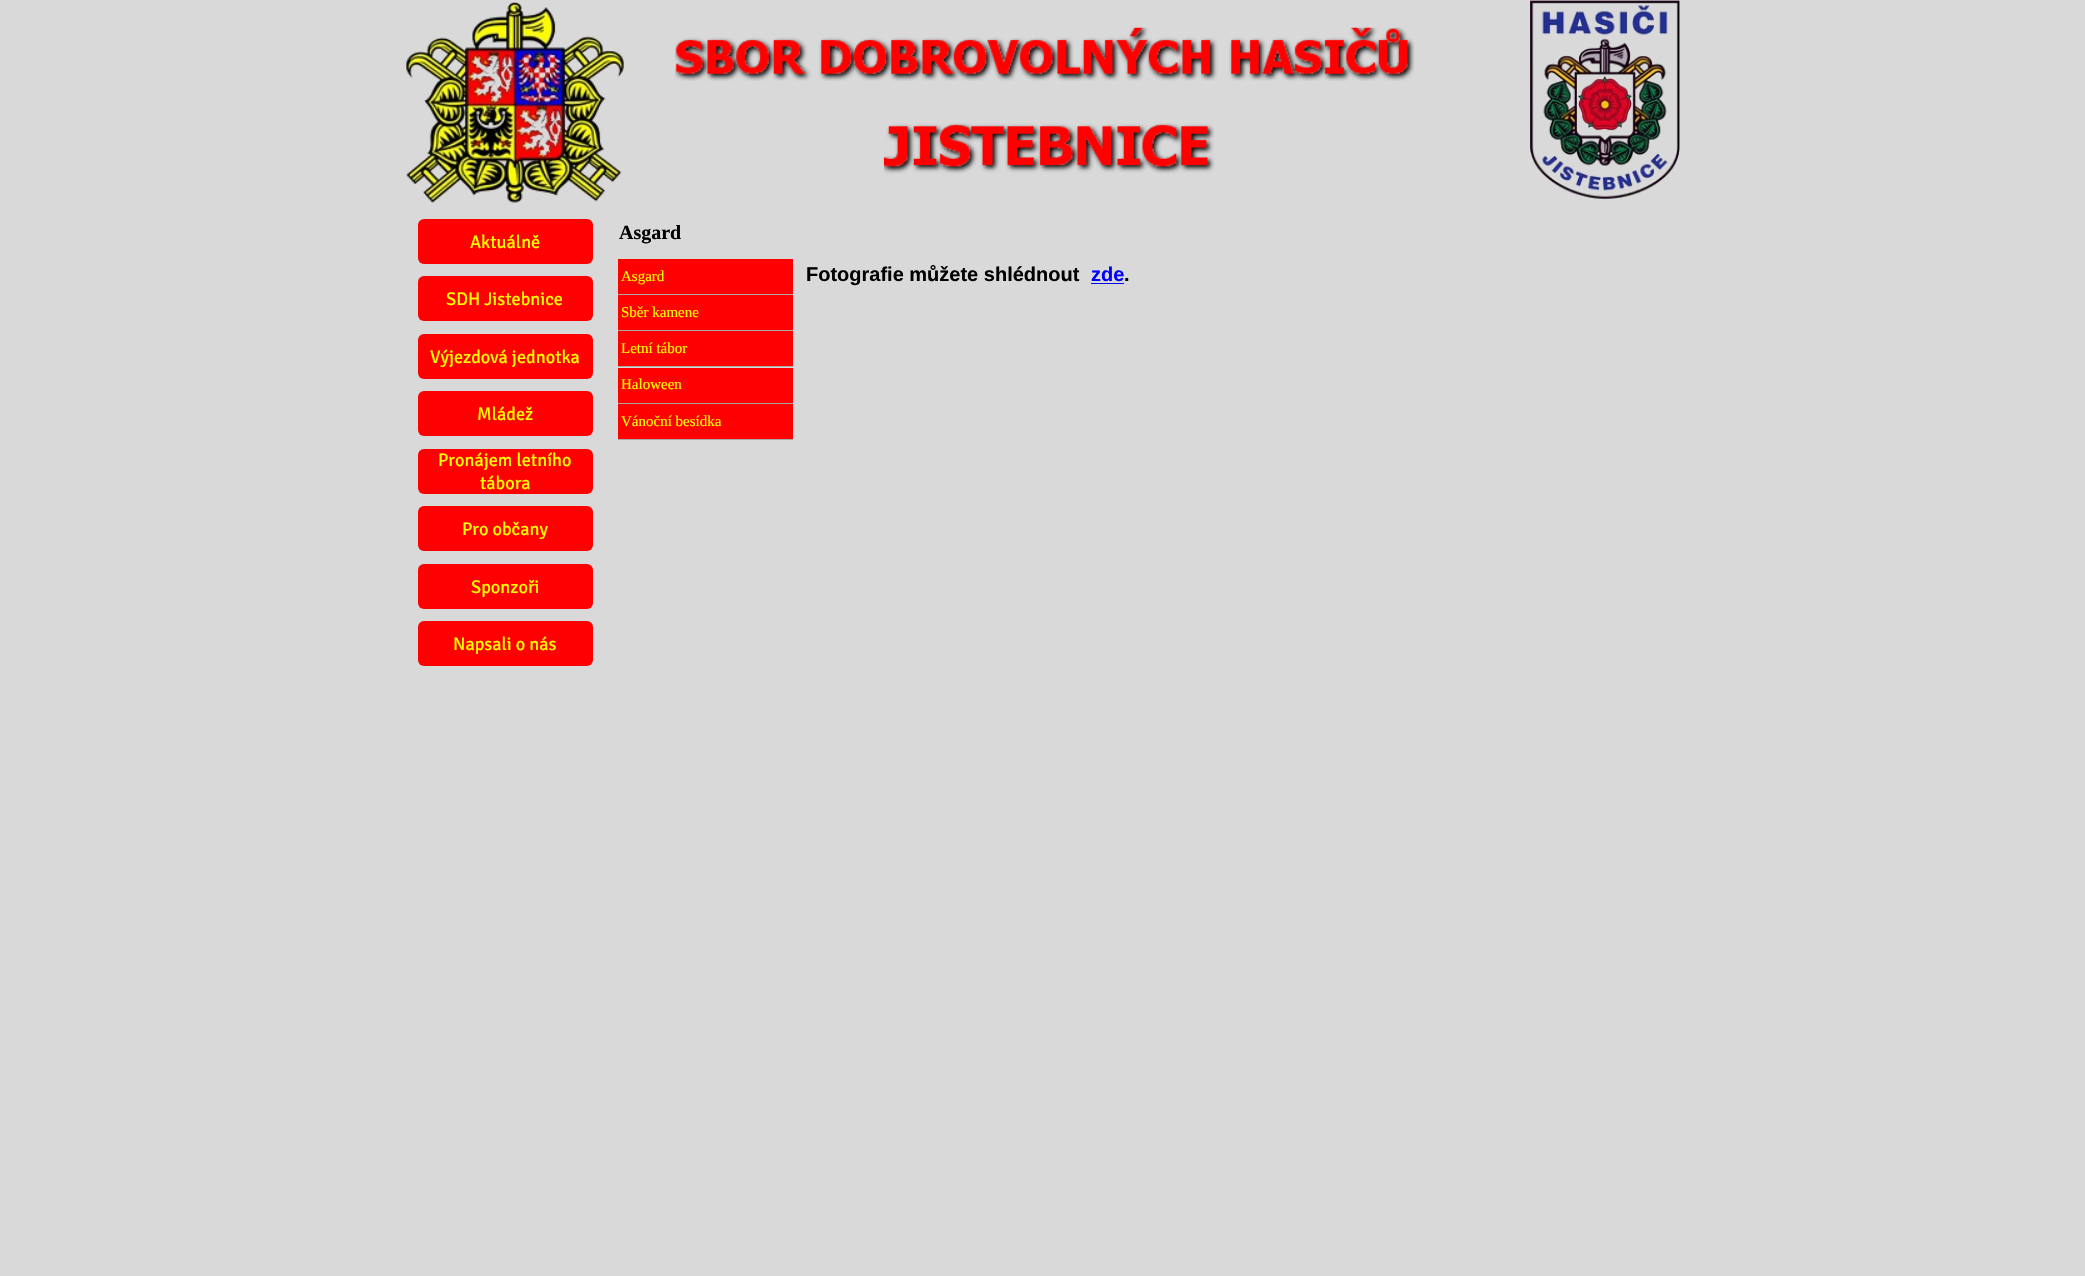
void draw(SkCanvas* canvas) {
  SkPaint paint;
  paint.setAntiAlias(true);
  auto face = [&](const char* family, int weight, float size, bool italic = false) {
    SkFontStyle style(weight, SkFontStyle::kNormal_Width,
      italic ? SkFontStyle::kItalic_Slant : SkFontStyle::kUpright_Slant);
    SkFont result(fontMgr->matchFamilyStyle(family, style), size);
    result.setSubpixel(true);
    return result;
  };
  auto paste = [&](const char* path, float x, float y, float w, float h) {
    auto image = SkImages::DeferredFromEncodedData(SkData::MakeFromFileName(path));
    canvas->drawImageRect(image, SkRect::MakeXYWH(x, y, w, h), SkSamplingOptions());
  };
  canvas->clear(0xffd9d9d9);
  paste("img/1.png", 406, 2, 218, 201);
  paste("img/2.png", 675, 27, 740, 54);
  paste("img/3.png", 1530, 0, 150, 199);
  paste("img/4.png", 883, 123, 332, 51);
  paint.setColor(0xffff0000);
  canvas->drawRoundRect(SkRect::MakeXYWH(418, 219, 175, 45), 6, 6, paint);
  canvas->drawRoundRect(SkRect::MakeXYWH(418, 276, 175, 45), 6, 6, paint);
  canvas->drawRoundRect(SkRect::MakeXYWH(418, 334, 175, 45), 6, 6, paint);
  canvas->drawRoundRect(SkRect::MakeXYWH(418, 391, 175, 45), 6, 6, paint);
  canvas->drawRoundRect(SkRect::MakeXYWH(418, 449, 175, 45), 6, 6, paint);
  canvas->drawRoundRect(SkRect::MakeXYWH(418, 506, 175, 45), 6, 6, paint);
  canvas->drawRoundRect(SkRect::MakeXYWH(418, 564, 175, 45), 6, 6, paint);
  canvas->drawRoundRect(SkRect::MakeXYWH(418, 621, 175, 45), 6, 6, paint);
  {
    const struct { float x, y, w, h; SkColor color; } items[] = {
      {618, 259, 175, 35, 0xffff0000},
      {618, 294, 175, 1, 0xffa9a9a9},
      {618, 295, 175, 35, 0xffff0000},
      {618, 330, 175, 1, 0xffa9a9a9},
      {618, 331, 175, 35, 0xffff0000},
      {618, 366, 175, 1, 0xffa9a9a9},
      {618, 368, 175, 35, 0xffff0000},
      {618, 403, 175, 1, 0xffa9a9a9},
      {618, 404, 175, 35, 0xffff0000},
      {618, 439, 175, 1, 0xffa9a9a9},
      {1091, 283, 33, 1, 0xff0000ff},
    };
    for (auto [x, y, w, h, color] : items) {
      paint.setColor(color);
      canvas->drawRect(SkRect::MakeXYWH(x, y, w, h), paint);
    }
  }
  auto f0 = face("Signika Negative", 400, 18.25f);
  paint.setColor(0xffffff00);
  {
    const struct { const char* s; float x, y; } items[] = {
      {"Aktuálně", 470, 248},
      {"SDH Jistebnice", 446, 305},
      {"Výjezdová jednotka", 430, 363},
      {"Mládež", 477, 420},
      {"Pronájem letního", 438, 466},
      {"tábora", 480, 489},
      {"Pro občany", 462, 535},
      {"Sponzoři", 471, 593},
      {"Napsali o nás", 453, 650},
    };
    for (auto [s, x, y] : items) {
      canvas->drawString(s, x, y, f0, paint);
    }
  }
  auto f1 = face("Liberation Serif", 700, 20);
  paint.setColor(0xff000000);
  canvas->drawString("Asgard", 619, 239, f1, paint);
  auto f2 = face("Liberation Serif", 400, 15);
  paint.setColor(0xffffff00);
  {
    const struct { const char* s; float x, y; } items[] = {
      {"Asgard", 621, 281},
      {"Sběr kamene", 621, 317},
      {"Letní tábor", 621, 353},
      {"Haloween", 621, 389},
      {"Vánoční besídka", 621, 426},
    };
    for (auto [s, x, y] : items) {
      canvas->drawString(s, x, y, f2, paint);
    }
  }
  auto f3 = face("Liberation Sans", 700, 20);
  paint.setColor(0xff000000);
  canvas->drawString("Fotografie můžete shlédnout", 806, 281, f3, paint);
  paint.setColor(0xff0000ff);
  canvas->drawString("zde", 1091, 281, f3, paint);
  paint.setColor(0xff000000);
  canvas->drawString(".", 1124, 281, f3, paint);
}
